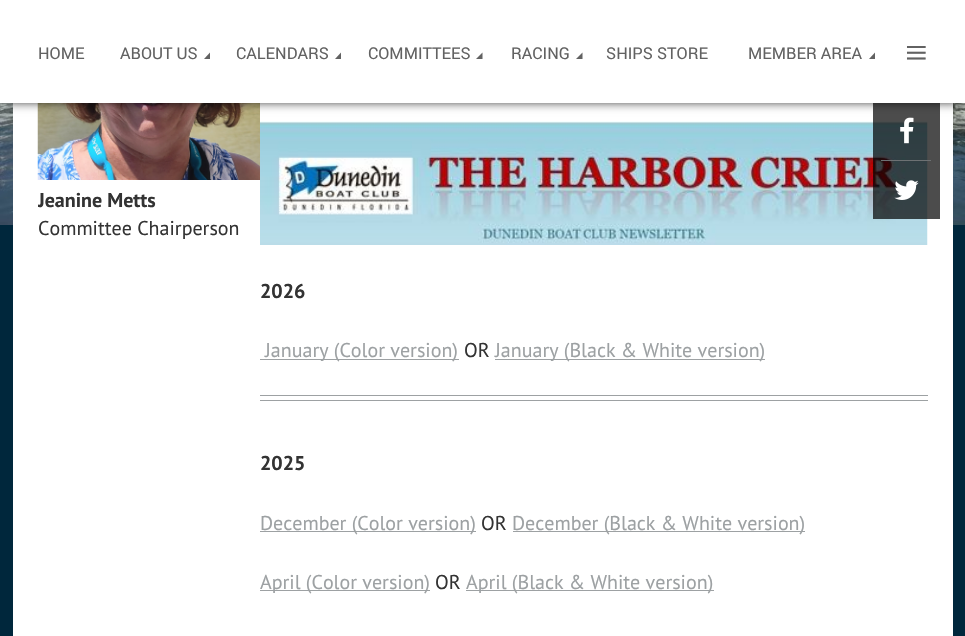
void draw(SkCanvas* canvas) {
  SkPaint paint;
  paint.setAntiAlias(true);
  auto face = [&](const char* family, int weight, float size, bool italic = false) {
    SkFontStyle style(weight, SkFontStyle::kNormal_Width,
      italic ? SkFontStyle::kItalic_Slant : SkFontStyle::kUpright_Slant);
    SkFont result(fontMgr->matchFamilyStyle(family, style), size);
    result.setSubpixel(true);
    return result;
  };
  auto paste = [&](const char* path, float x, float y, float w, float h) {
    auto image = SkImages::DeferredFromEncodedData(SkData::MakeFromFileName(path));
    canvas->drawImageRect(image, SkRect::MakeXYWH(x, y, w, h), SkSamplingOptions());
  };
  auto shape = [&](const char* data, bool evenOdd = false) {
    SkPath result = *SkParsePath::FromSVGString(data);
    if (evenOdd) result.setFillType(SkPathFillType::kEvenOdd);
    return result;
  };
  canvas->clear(0xff00273c);
  paste("img/1.png", 0, 103, 965, 122);
  paint.setColor(0xffffffff);
  canvas->drawRect(SkRect::MakeXYWH(13, 103, 940, 533), paint);
  paste("img/5.png", 260, 121, 668, 124);
  paint.setColor(0xb3000000);
  canvas->drawRect(SkRect::MakeXYWH(873, 103, 67, 116), paint);
  paste("img/2.png", 900, 117, 14, 27);
  paste("img/4.png", 37, 103, 223, 77);
  paint.setColor(0xff000000);
  paint.setMaskFilter(SkMaskFilter::MakeBlur(kNormal_SkBlurStyle, 5.5f));
  canvas->drawRect(SkRect::MakeXYWH(5, 9, 955, 92), paint);
  paint.setMaskFilter(nullptr);
  paint.setColor(0xffffffff);
  canvas->drawRect(SkRect::MakeXYWH(0, 0, 965, 103), paint);
  paint.setColor(0xff626262);
  canvas->drawPath(shape("M210 59H204L210 52.5Z"), paint);
  canvas->drawPath(shape("M341 59H335L341 52.5Z"), paint);
  canvas->drawPath(shape("M482.5 59H476L482.5 52.5Z"), paint);
  canvas->drawPath(shape("M582.5 59H576L582.5 52.5Z"), paint);
  canvas->drawPath(shape("M875 59H869L875 52.5Z"), paint);
  paint.setColor(0xff6d7173);
  canvas->drawRect(SkRect::MakeXYWH(881, 160, 50, 1), paint);
  paste("img/3.png", 894, 180, 25, 20);
  {
    const struct { float x, y, w, h; SkColor color; } items[] = {
      {260, 359, 199, 1, 0xff9da1a3},
      {495, 359, 270, 1, 0xff9da1a3},
      {260, 395, 668, 1, 0xff9da1a3},
      {260, 400, 668, 1, 0xff9da1a3},
      {260, 531, 216, 1, 0xff9da1a3},
      {513, 531, 292, 1, 0xff9da1a3},
      {260, 590, 170, 1, 0xff9da1a3},
      {466, 590, 248, 1, 0xff9da1a3},
    };
    for (auto [x, y, w, h, color] : items) {
      paint.setColor(color);
      canvas->drawRect(SkRect::MakeXYWH(x, y, w, h), paint);
    }
  }
  auto f0 = face("Roboto", 400, 16.25f);
  paint.setColor(0xff626262);
  {
    const struct { const char* s; float x, y; } items[] = {
      {"HOME", 38, 59},
      {"ABOUT US", 120, 59},
      {"CALENDARS", 236, 59},
      {"COMMITTEES", 368, 59},
      {"RACING", 511, 59},
      {"SHIPS STORE", 606, 59},
      {"MEMBER AREA", 748, 59},
    };
    for (auto [s, x, y] : items) {
      canvas->drawString(s, x, y, f0, paint);
    }
  }
  auto f1 = face("Liberation Serif", 400, 40);
  canvas->drawString("≡", 905, 66, f1, paint);
  canvas->save();
  canvas->clipRect(SkRect::MakeXYWH(38, 0, 222, 241));
  auto f2 = face("PT Sans", 700, 20);
  paint.setColor(0xff333333);
  canvas->drawString("Jeanine Metts", 38, 207, f2, paint);
  canvas->restore();
  auto f3 = face("PT Sans", 400, 20);
  canvas->drawString("Committee Chairperson", 38, 235, f3, paint);
  canvas->drawString("2026", 260, 298, f2, paint);
  paint.setColor(0xff9da1a3);
  canvas->drawString("January (Color version)", 265, 357, f3, paint);
  paint.setColor(0xff333333);
  canvas->drawString("OR", 464, 357, f3, paint);
  paint.setColor(0xff9da1a3);
  canvas->drawString("January (Black & White version)", 495, 357, f3, paint);
  paint.setColor(0xff333333);
  canvas->drawString("2025", 260, 470, f2, paint);
  paint.setColor(0xff9da1a3);
  canvas->drawString("December (Color version)", 260, 530, f3, paint);
  paint.setColor(0xff333333);
  canvas->drawString("OR", 481, 530, f3, paint);
  paint.setColor(0xff9da1a3);
  canvas->drawString("December (Black & White version)", 512, 530, f3, paint);
  canvas->drawString("April (Color version)", 260, 589, f3, paint);
  paint.setColor(0xff333333);
  canvas->drawString("OR", 435, 589, f3, paint);
  paint.setColor(0xff9da1a3);
  canvas->drawString("April (Black & White version)", 466, 589, f3, paint);
}
